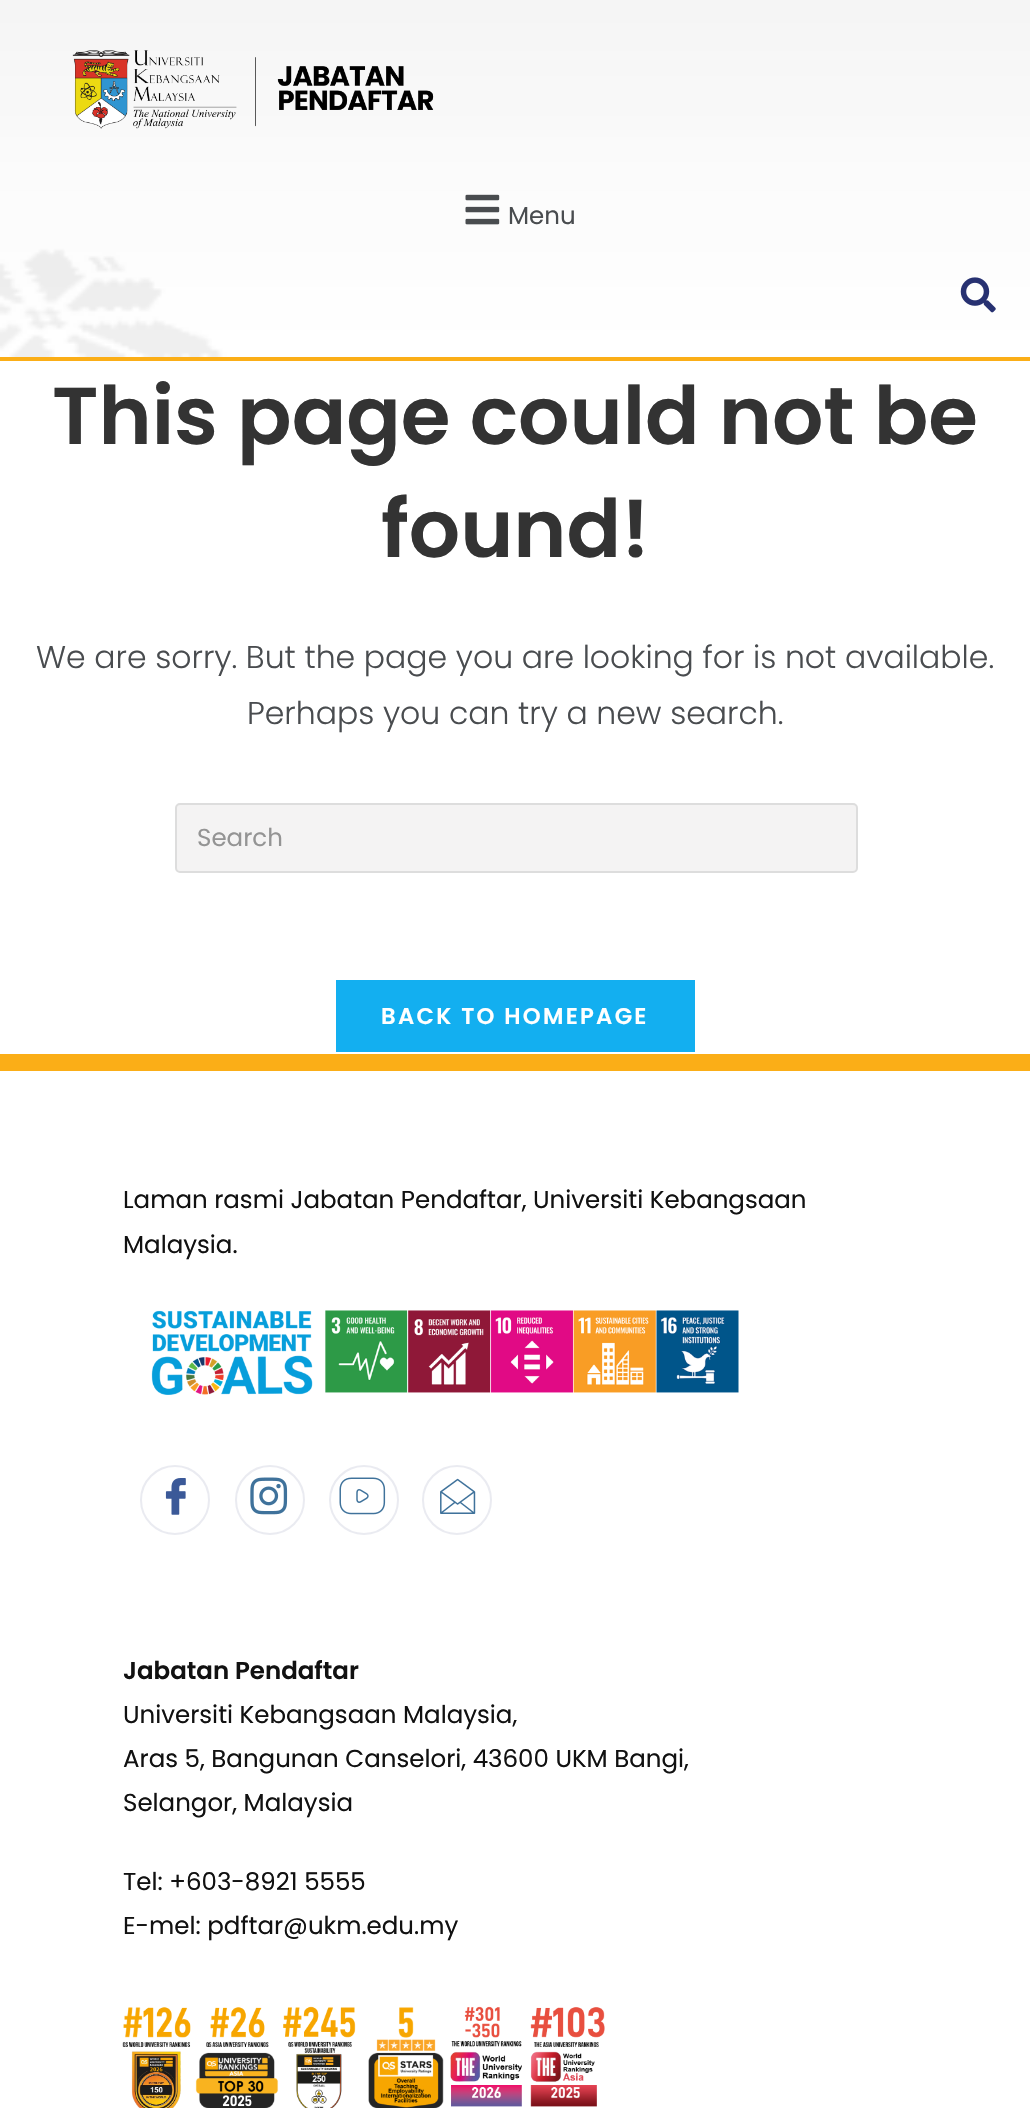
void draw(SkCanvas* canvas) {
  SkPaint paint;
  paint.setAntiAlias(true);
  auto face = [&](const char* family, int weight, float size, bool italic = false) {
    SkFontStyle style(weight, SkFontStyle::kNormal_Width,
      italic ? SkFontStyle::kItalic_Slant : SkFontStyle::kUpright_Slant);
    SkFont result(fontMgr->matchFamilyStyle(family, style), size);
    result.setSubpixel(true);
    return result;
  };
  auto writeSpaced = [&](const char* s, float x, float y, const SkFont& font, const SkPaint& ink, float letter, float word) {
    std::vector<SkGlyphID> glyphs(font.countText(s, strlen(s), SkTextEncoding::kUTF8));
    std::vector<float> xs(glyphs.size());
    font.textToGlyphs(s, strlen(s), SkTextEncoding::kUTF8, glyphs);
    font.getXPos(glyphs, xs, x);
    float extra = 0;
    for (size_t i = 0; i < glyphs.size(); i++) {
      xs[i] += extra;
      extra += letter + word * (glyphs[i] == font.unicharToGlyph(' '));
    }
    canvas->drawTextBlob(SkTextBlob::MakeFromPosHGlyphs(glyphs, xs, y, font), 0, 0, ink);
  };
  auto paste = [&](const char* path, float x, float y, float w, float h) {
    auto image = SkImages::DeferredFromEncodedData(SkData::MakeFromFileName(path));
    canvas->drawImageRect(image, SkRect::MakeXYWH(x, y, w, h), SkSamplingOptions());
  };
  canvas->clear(0xffffffff);
  paint.setColor(0xfffbae17);
  canvas->drawRect(SkRect::MakeXYWH(0, 357, 1030, 4), paint);
  paste("img/1.png", 0, 0, 1030, 357);
  paste("img/2.png", 72, 50, 362, 79);
  paste("img/3.png", 465, 194, 35, 31);
  paste("img/4.png", 960, 277, 36, 36);
  paint.setColor(0xfff4f3f3);
  canvas->drawRoundRect(SkRect::MakeXYWH(176, 804, 681, 68), 4, 4, paint);
  paint.setStroke(true);
  paint.setStrokeWidth(2);
  paint.setColor(0xffdddddd);
  canvas->drawRoundRect(SkRect::MakeXYWH(176, 804, 681, 68), 4, 4, paint);
  paint.setStroke(false);
  paint.setColor(0xff13aff0);
  canvas->drawRect(SkRect::MakeXYWH(336, 980, 359, 72), paint);
  paint.setColor(0xfffbae17);
  canvas->drawRect(SkRect::MakeXYWH(0, 1054, 1030, 17), paint);
  paste("img/5.png", 151, 1310, 588, 85);
  paint.setStroke(true);
  paint.setColor(0xffeaebf1);
  canvas->drawCircle(175, 1500, 34, paint);
  paste("img/6.png", 165, 1478, 21, 37);
  canvas->drawCircle(270, 1500, 34, paint);
  paste("img/7.png", 250, 1477, 38, 38);
  canvas->drawCircle(364, 1500, 34, paint);
  paste("img/8.png", 339, 1477, 47, 38);
  canvas->drawCircle(457, 1500, 34, paint);
  paste("img/9.png", 440, 1478, 36, 36);
  paste("img/10.png", 122, 2006, 483, 102);
  auto f0 = face("Poppins", 400, 24.5f);
  paint.setStroke(false);
  paint.setColor(0xff494c4f);
  canvas->drawString("Menu", 508, 224, f0, paint);
  auto f1 = face("Poppins", 600, 80.5f);
  paint.setColor(0xff333333);
  canvas->drawString("This page could not be", 52, 444, f1, paint);
  canvas->drawString("found!", 381, 557, f1, paint);
  auto f2 = face("Poppins", 300, 31.5f);
  paint.setColor(0xff494c4f);
  canvas->drawString("We are sorry. But the page you are looking for is not available.", 36, 668, f2, paint);
  canvas->drawString("Perhaps you can try a new search.", 247, 724, f2, paint);
  paint.setColor(0xff949494);
  canvas->drawString("Search", 197, 846, f0, paint);
  auto f3 = face("Poppins", 600, 22.75f);
  paint.setColor(0xffffffff);
  writeSpaced("BACK TO HOMEPAGE", 381, 1024, f3, paint, 2.25f, 0);
  paint.setColor(0xff111111);
  canvas->drawString("Laman rasmi Jabatan Pendaftar, Universiti Kebangsaan", 123, 1208, f0, paint);
  canvas->drawString("Malaysia.", 123, 1253, f0, paint);
  auto f4 = face("Poppins", 600, 24.5f);
  canvas->drawString("Jabatan Pendaftar", 123, 1679, f4, paint);
  {
    const struct { const char* s; float x, y; } items[] = {
      {"Universiti Kebangsaan Malaysia,", 123, 1723},
      {"Aras 5, Bangunan Canselori, 43600 UKM Bangi,", 123, 1767},
      {"Selangor, Malaysia", 123, 1811},
      {"Tel: +603-8921 5555", 123, 1890},
      {"E-mel: pdftar@ukm.edu.my", 123, 1934},
    };
    for (auto [s, x, y] : items) {
      canvas->drawString(s, x, y, f0, paint);
    }
  }
}
